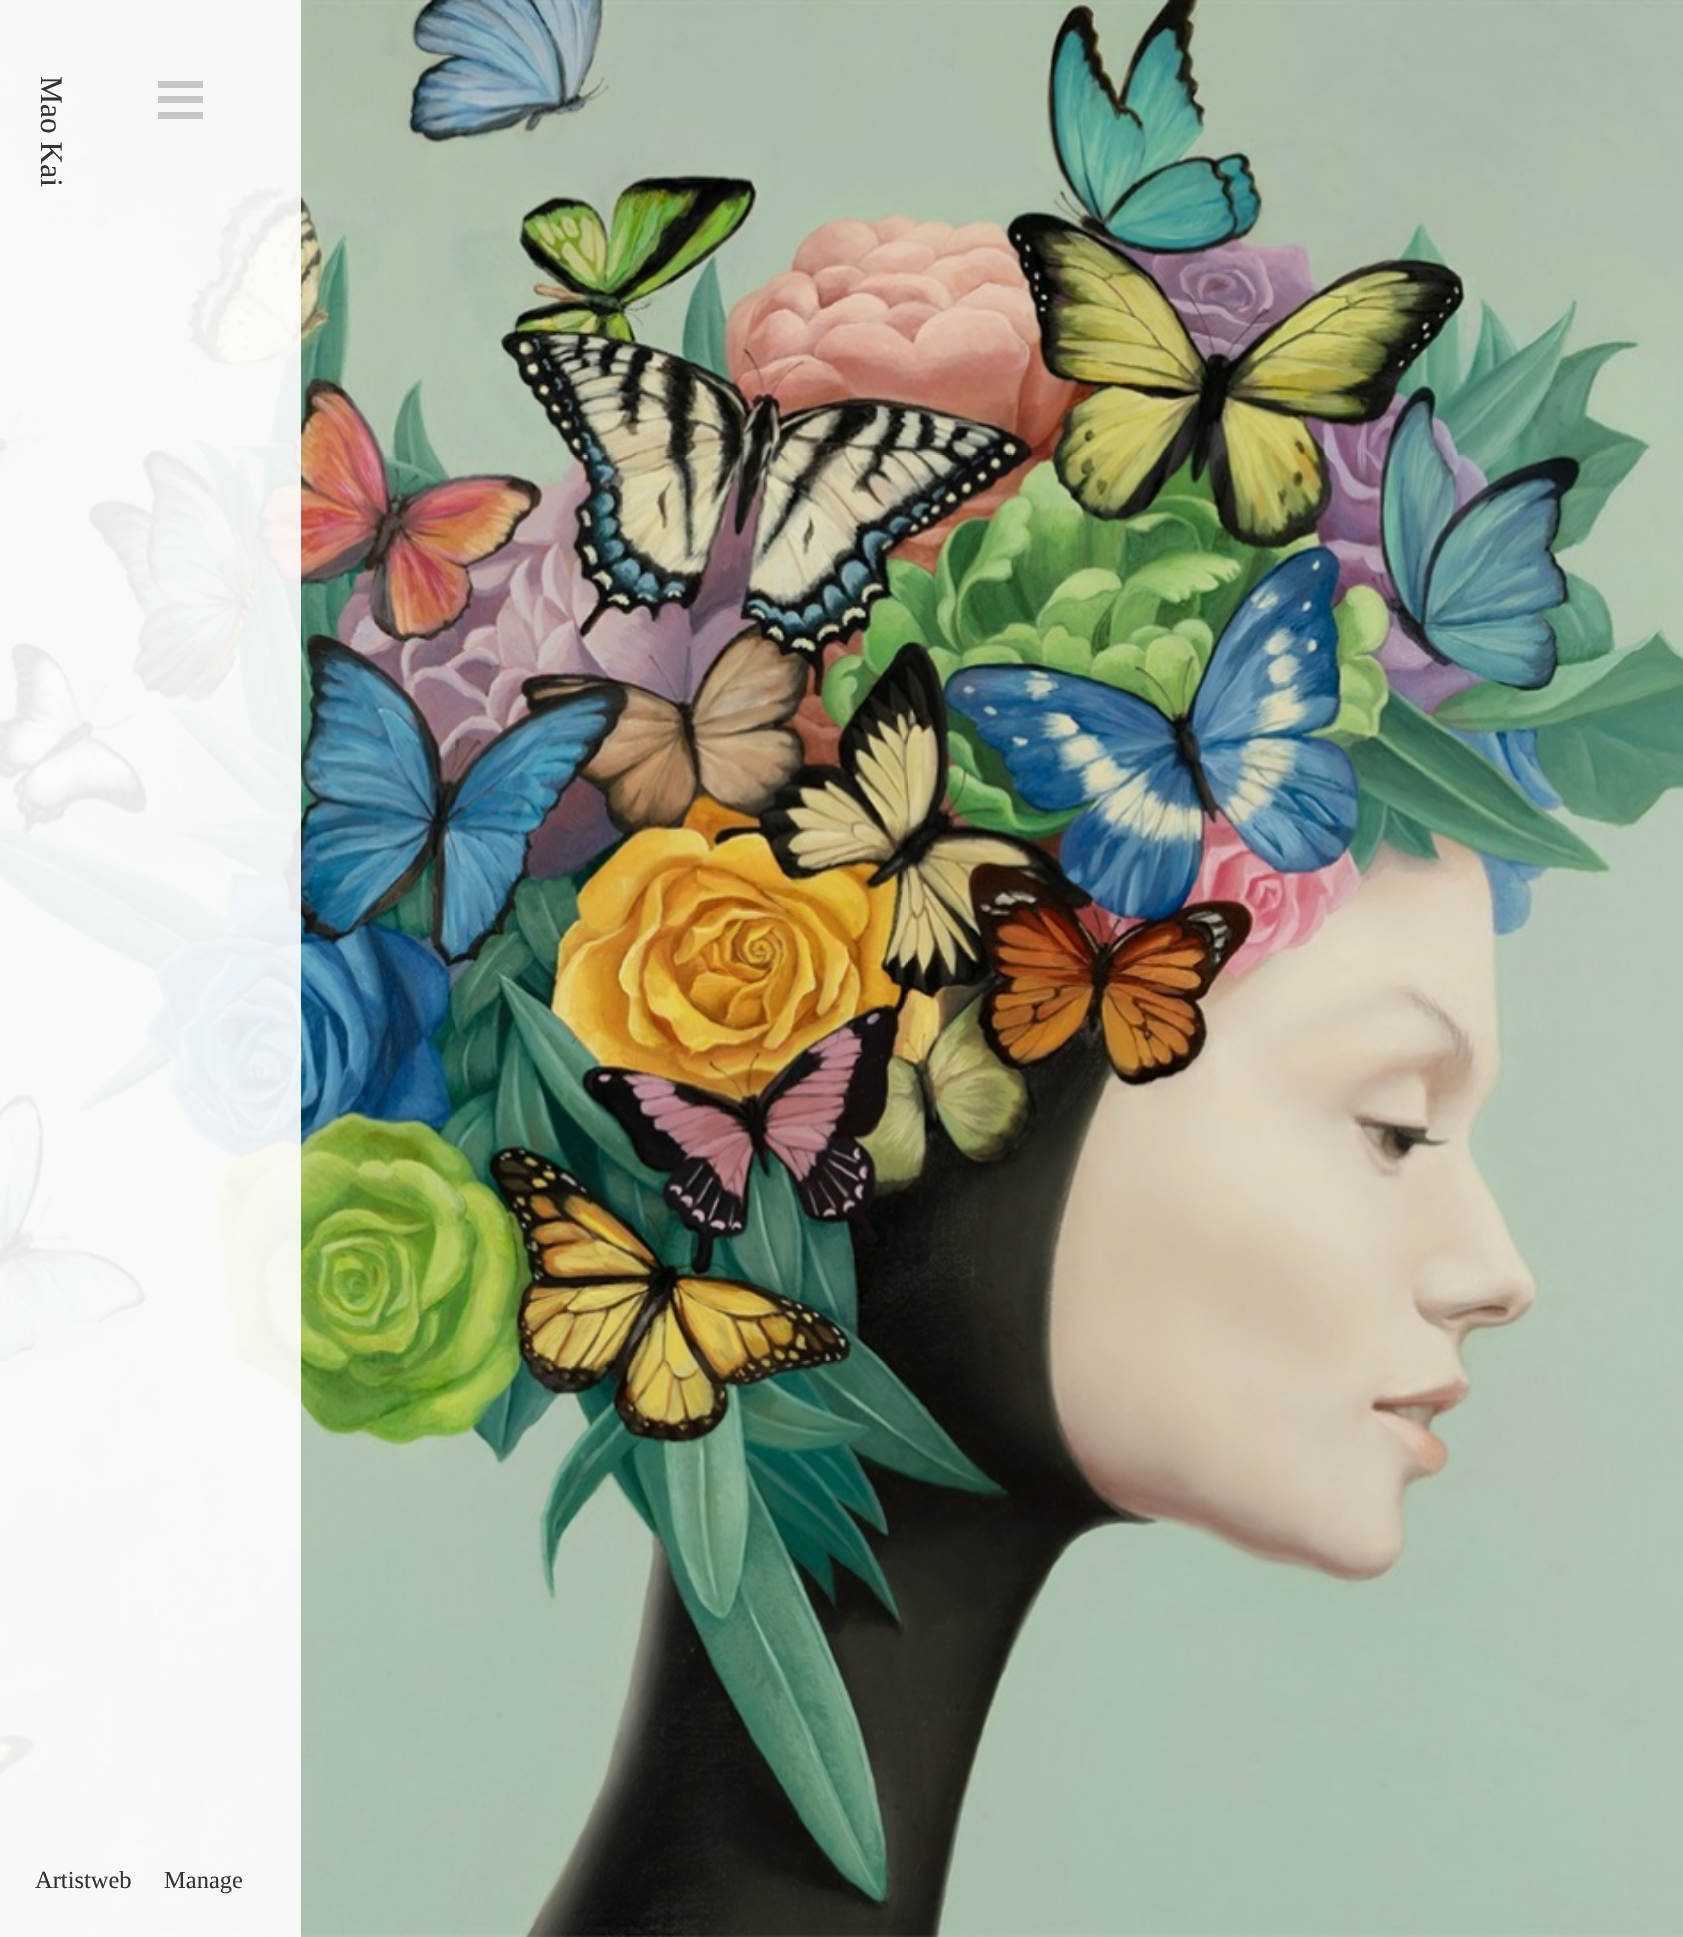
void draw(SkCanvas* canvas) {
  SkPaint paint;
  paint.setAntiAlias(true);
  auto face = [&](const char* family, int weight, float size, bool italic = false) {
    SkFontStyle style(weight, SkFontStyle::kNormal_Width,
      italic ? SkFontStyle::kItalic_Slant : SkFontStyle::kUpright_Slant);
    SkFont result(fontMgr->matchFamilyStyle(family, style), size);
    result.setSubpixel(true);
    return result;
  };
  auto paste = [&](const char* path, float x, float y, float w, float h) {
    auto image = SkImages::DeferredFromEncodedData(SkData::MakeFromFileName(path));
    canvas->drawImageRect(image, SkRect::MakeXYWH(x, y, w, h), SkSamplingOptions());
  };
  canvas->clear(0xffffffff);
  paste("img/1.png", 0, 0, 1683, 1937);
  {
    const struct { float x, y, w, h; SkColor color; } items[] = {
      {0, 0, 301, 1937, 0xe6ffffff},
      {158, 81, 45, 7, 0xffc5c7c5},
      {158, 96, 45, 7, 0xffc6c7c5},
      {158, 112, 45, 7, 0xffc6c7c5},
    };
    for (auto [x, y, w, h, color] : items) {
      paint.setColor(color);
      canvas->drawRect(SkRect::MakeXYWH(x, y, w, h), paint);
    }
  }
  auto f0 = face("Liberation Serif", 400, 31.5f);
  paint.setColor(0xff333333);
  canvas->save();
  canvas->rotate(90, 41, 76);
  canvas->drawString("Mao Kai", 41, 76, f0, paint);
  canvas->restore();
  auto f1 = face("Liberation Serif", 400, 24.5f);
  canvas->drawString("Artistweb", 35, 1888, f1, paint);
  canvas->drawString("Manage", 164, 1888, f1, paint);
}
